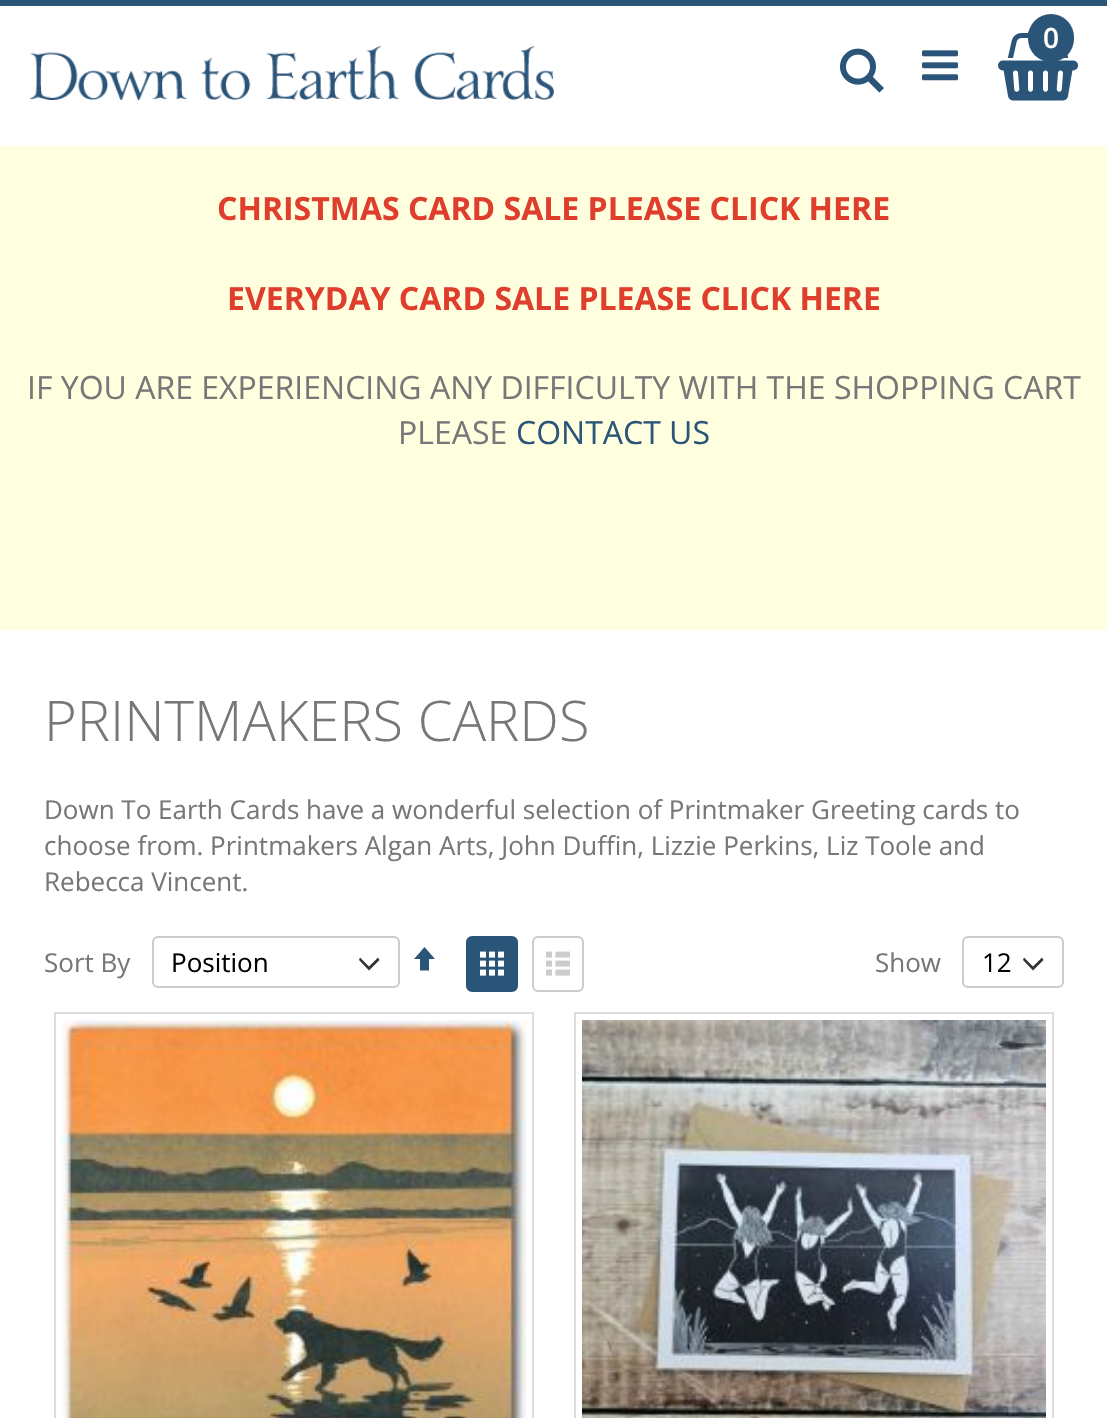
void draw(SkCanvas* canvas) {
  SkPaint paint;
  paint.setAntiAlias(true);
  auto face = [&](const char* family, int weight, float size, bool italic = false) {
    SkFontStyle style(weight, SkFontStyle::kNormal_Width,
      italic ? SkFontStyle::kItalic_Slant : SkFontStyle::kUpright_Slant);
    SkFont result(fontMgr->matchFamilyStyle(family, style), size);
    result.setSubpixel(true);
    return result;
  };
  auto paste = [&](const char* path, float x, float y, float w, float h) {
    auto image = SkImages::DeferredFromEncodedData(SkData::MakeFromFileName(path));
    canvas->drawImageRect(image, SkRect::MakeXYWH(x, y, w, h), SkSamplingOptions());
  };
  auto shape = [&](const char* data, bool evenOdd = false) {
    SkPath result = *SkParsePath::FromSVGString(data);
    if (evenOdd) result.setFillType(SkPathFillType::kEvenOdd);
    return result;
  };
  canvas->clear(0xffffffff);
  paint.setColor(0xff2b5479);
  canvas->drawRect(SkRect::MakeXYWH(0, 0, 1107, 6), paint);
  paste("img/1.png", 998, 30, 80, 71);
  canvas->drawRoundRect(SkRect::MakeXYWH(1028, 14, 46, 48), 23, 23, paint);
  paste("img/2.png", 30, 46, 524, 54);
  paste("img/3.png", 840, 48, 44, 45);
  paste("img/4.png", 922, 50, 36, 31);
  paint.setColor(0xffffffe0);
  canvas->drawRect(SkRect::MakeXYWH(0, 146, 1107, 484), paint);
  paint.setColor(0xff333333);
  canvas->drawPath(shape("M369.5 970L379.5 960L378 957.5L369 966.5L360 957.5L359 960L369 970.5Z", true), paint);
  paint.setStroke(true);
  paint.setStrokeWidth(2);
  paint.setColor(0xffcccccc);
  canvas->drawRoundRect(SkRect::MakeXYWH(153, 937, 246, 50), 5, 5, paint);
  paint.setStroke(false);
  paint.setColor(0xff2b5479);
  canvas->drawPath(shape("M435 959H429V970.5H420V959H414L424.5 947Z"), paint);
  canvas->drawRoundRect(SkRect::MakeXYWH(467, 937, 50, 54), 5, 5, paint);
  paint.setStroke(true);
  canvas->drawRoundRect(SkRect::MakeXYWH(467, 937, 50, 54), 5, 5, paint);
  paste("img/5.png", 480, 951, 24, 25);
  paint.setColor(0xffcccccc);
  canvas->drawRoundRect(SkRect::MakeXYWH(533, 937, 50, 54), 5, 5, paint);
  paste("img/6.png", 546, 951, 24, 25);
  paint.setStroke(false);
  paint.setColor(0xff333333);
  canvas->drawPath(shape("M1033.5 970L1043.5 960L1042 957.5L1033 966.5L1024 957.5L1023 960L1033 970.5Z", true), paint);
  paint.setStroke(true);
  paint.setColor(0xffcccccc);
  canvas->drawRoundRect(SkRect::MakeXYWH(963, 937, 100, 50), 5, 5, paint);
  paint.setColor(0xffdddddd);
  canvas->drawRect(SkRect::MakeXYWH(55, 1013, 478, 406), paint);
  paste("img/7.png", 62, 1020, 464, 398);
  canvas->drawRect(SkRect::MakeXYWH(575, 1013, 478, 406), paint);
  paste("img/8.png", 582, 1020, 464, 398);
  auto f0 = face("Open Sans", 600, 28);
  paint.setStroke(false);
  paint.setColor(0xffffffff);
  canvas->drawString("0", 1043, 48, f0, paint);
  auto f1 = face("Open Sans", 700, 32);
  paint.setColor(0xffe03e2d);
  canvas->drawString("CHRISTMAS CARD SALE PLEASE CLICK HERE", 217, 220, f1, paint);
  canvas->drawString("EVERYDAY CARD SALE PLEASE CLICK HERE", 227, 310, f1, paint);
  auto f2 = face("Open Sans", 400, 32);
  paint.setColor(0xff777777);
  canvas->drawString("IF YOU ARE EXPERIENCING ANY DIFFICULTY WITH THE SHOPPING CART", 27, 399, f2, paint);
  canvas->drawString("PLEASE", 398, 444, f2, paint);
  paint.setColor(0xff2b5479);
  canvas->drawString("CONTACT US", 516, 444, f2, paint);
  auto f3 = face("Open Sans", 300, 56);
  paint.setColor(0xff777777);
  canvas->drawString("PRINTMAKERS CARDS", 44, 741, f3, paint);
  auto f4 = face("Open Sans", 400, 26);
  {
    const struct { const char* s; float x, y; } items[] = {
      {"Down To Earth Cards have a wonderful selection of Printmaker Greeting cards to", 44, 819},
      {"choose from. Printmakers Algan Arts, John Duffin, Lizzie Perkins, Liz Toole and", 44, 855},
      {"Rebecca Vincent.", 44, 891},
      {"Sort By", 44, 972},
    };
    for (auto [s, x, y] : items) {
      canvas->drawString(s, x, y, f4, paint);
    }
  }
  paint.setColor(0xff000000);
  canvas->drawString("Position", 171, 972, f4, paint);
  paint.setColor(0xff777777);
  canvas->drawString("Show", 875, 972, f4, paint);
  paint.setColor(0xff000000);
  canvas->drawString("12", 982, 972, f4, paint);
}
